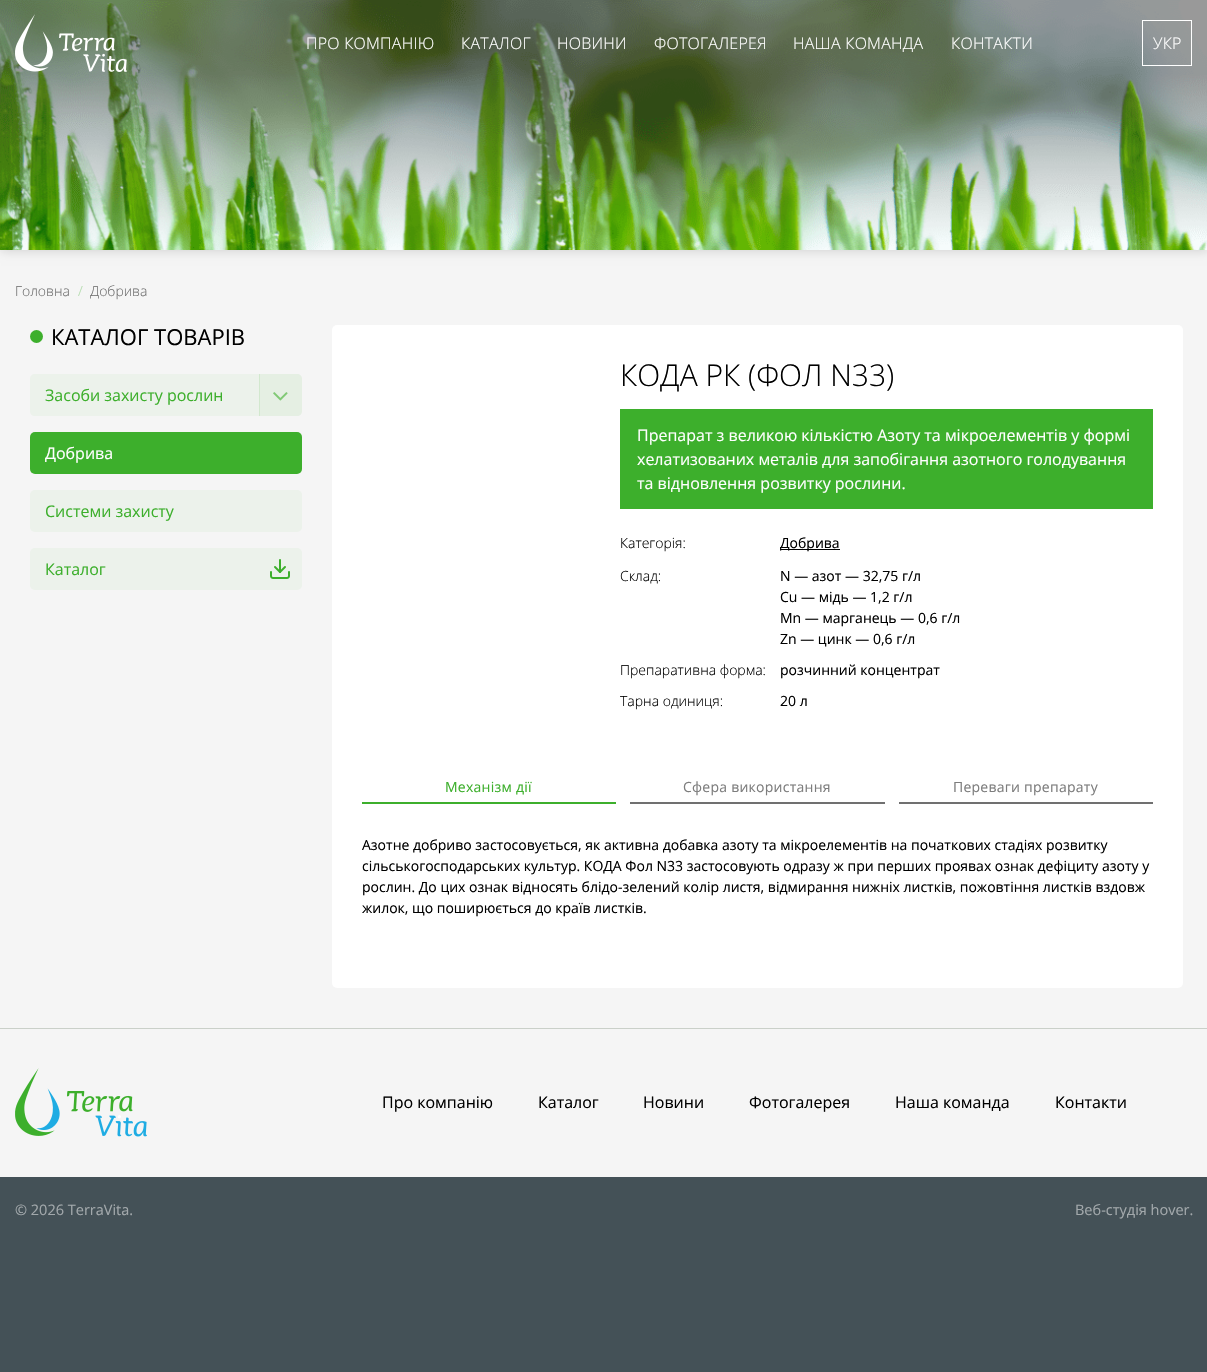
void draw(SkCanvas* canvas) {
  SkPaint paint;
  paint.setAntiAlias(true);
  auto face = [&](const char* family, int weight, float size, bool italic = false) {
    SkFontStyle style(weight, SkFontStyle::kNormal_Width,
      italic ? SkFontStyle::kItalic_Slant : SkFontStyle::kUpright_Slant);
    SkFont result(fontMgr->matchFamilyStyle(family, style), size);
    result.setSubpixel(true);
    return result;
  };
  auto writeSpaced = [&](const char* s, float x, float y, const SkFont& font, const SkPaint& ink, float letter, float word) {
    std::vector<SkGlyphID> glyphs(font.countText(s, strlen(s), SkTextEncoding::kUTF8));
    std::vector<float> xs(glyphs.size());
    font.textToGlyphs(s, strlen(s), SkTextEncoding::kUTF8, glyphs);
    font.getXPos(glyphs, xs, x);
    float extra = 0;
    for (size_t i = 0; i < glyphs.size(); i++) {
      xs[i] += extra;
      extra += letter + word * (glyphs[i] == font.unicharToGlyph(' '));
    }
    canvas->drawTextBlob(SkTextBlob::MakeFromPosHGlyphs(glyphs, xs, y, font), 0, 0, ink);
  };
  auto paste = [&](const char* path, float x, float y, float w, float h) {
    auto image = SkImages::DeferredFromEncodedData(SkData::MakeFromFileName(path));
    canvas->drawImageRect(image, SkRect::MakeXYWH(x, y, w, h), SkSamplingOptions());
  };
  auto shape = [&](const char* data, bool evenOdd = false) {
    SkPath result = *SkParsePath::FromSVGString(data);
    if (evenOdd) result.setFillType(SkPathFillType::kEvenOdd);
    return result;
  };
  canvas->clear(0xff445157);
  paint.setColor(0xfff5f5f5);
  canvas->drawRect(SkRect::MakeXYWH(0, 250, 1207, 927), paint);
  paint.setColor(0x26000000);
  paint.setMaskFilter(SkMaskFilter::MakeBlur(kNormal_SkBlurStyle, 5));
  canvas->drawRect(SkRect::MakeXYWH(1, 1, 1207, 250), paint);
  paint.setMaskFilter(nullptr);
  paste("img/1.png", 0, 0, 1207, 250);
  paste("img/2.png", 15, 14, 112, 58);
  paint.setStroke(true);
  paint.setStrokeWidth(1);
  paint.setColor(0xffffffff);
  canvas->drawRect(SkRect::MakeXYWH(1142.5f, 20.5f, 49, 45), paint);
  paint.setStroke(false);
  paint.setColor(0xff3daf2c);
  canvas->drawCircle(36.5f, 336.5f, 6.5f, paint);
  paint.setColor(0xffecf2eb);
  canvas->drawPath(shape("M35 374H260V416H35C32 416 30 414 30 411V379C30 376 32 374 35 374Z"), paint);
  paint.setColor(0xffd2e8ce);
  canvas->drawRect(SkRect::MakeXYWH(259, 374, 1, 42), paint);
  paint.setColor(0xffe5efe3);
  canvas->drawPath(shape("M260 374H297C300 374 302 376 302 379V411C302 414 300 416 297 416H260Z"), paint);
  paste("img/3.png", 273, 392, 15, 9);
  paint.setColor(0xff3daf2c);
  canvas->drawRoundRect(SkRect::MakeXYWH(30, 432, 272, 42), 5, 5, paint);
  paint.setColor(0xffecf2eb);
  canvas->drawRoundRect(SkRect::MakeXYWH(30, 490, 272, 42), 5, 5, paint);
  canvas->drawRoundRect(SkRect::MakeXYWH(30, 548, 272, 42), 5, 5, paint);
  paste("img/4.png", 270, 559, 20, 20);
  paint.setColor(0xffffffff);
  canvas->drawRoundRect(SkRect::MakeXYWH(332, 325, 851, 663), 5, 5, paint);
  {
    const struct { float x, y, w, h; SkColor color; } items[] = {
      {620, 409, 533, 100, 0xff3daf2c},
      {780, 549, 60, 1, 0xff000000},
      {362, 802, 254, 2, 0xff3daf2c},
      {630, 802, 255, 2, 0xff707070},
      {899, 802, 254, 2, 0xff707070},
      {0, 1028, 1207, 1, 0xffcad0c9},
    };
    for (auto [x, y, w, h, color] : items) {
      paint.setColor(color);
      canvas->drawRect(SkRect::MakeXYWH(x, y, w, h), paint);
    }
  }
  paste("img/5.png", 15, 1068, 132, 69);
  auto f0 = face("Open Sans", 300, 16);
  paint.setColor(0xffffffff);
  {
    const struct { const char* s; float x, y; } items[] = {
      {"ПРО КОМПАНІЮ", 306, 49},
      {"КАТАЛОГ", 461, 49},
      {"НОВИНИ", 557, 49},
      {"ФОТОГАЛЕРЕЯ", 654, 49},
      {"НАША КОМАНДА", 793, 49},
      {"КОНТАКТИ", 951, 49},
      {"УКР", 1153, 49},
    };
    for (auto [s, x, y] : items) {
      writeSpaced(s, x, y, f0, paint, 0.25f, 0);
    }
  }
  auto f1 = face("Open Sans", 300, 14);
  paint.setColor(0xff707070);
  canvas->drawString("Головна", 15, 296, f1, paint);
  paint.setColor(0xffb5ddaf);
  canvas->drawString("/", 78, 296, f1, paint);
  paint.setColor(0xff707070);
  canvas->drawString("Добрива", 90, 296, f1, paint);
  auto f2 = face("Open Sans", 400, 22);
  paint.setColor(0xff000000);
  canvas->drawString("КАТАЛОГ ТОВАРІВ", 51, 345, f2, paint);
  auto f3 = face("Open Sans", 400, 16);
  paint.setColor(0xff3daf2c);
  canvas->drawString("Засоби захисту рослин", 45, 401, f3, paint);
  paint.setColor(0xffffffff);
  canvas->drawString("Добрива", 45, 459, f3, paint);
  paint.setColor(0xff3daf2c);
  canvas->drawString("Системи захисту", 45, 517, f3, paint);
  canvas->drawString("Каталог", 45, 575, f3, paint);
  auto f4 = face("Open Sans", 300, 30);
  paint.setColor(0xff000000);
  canvas->drawString("КОДА РК (ФОЛ N33)", 620, 386, f4, paint);
  paint.setColor(0xffffffff);
  {
    const struct { const char* s; float x, y; } items[] = {
      {"Препарат з великою кількістю Азоту та мікроелементів у формі", 637, 441},
      {"хелатизованих металів для запобігання азотного голодування", 637, 465},
      {"та відновлення розвитку рослини.", 637, 489},
    };
    for (auto [s, x, y] : items) {
      canvas->drawString(s, x, y, f3, paint);
    }
  }
  paint.setColor(0xff000000);
  canvas->drawString("Категорія:", 620, 548, f1, paint);
  auto f5 = face("Open Sans", 400, 14);
  canvas->drawString("Добрива", 780, 548, f5, paint);
  canvas->drawString("Склад:", 620, 581, f1, paint);
  {
    const struct { const char* s; float x, y; } items[] = {
      {"N — азот — 32,75 г/л", 780, 581},
      {"Cu — мідь — 1,2 г/л", 780, 602},
      {"Mn — марганець — 0,6 г/л", 780, 623},
      {"Zn — цинк — 0,6 г/л", 780, 644},
    };
    for (auto [s, x, y] : items) {
      canvas->drawString(s, x, y, f5, paint);
    }
  }
  canvas->drawString("Препаративна форма:", 620, 675, f1, paint);
  canvas->drawString("розчинний концентрат", 780, 675, f5, paint);
  canvas->drawString("Тарна одиниця:", 620, 706, f1, paint);
  canvas->drawString("20 л", 780, 706, f5, paint);
  paint.setColor(0xff3daf2c);
  writeSpaced("Механізм дії", 445, 792, f5, paint, 0.25f, 0);
  paint.setColor(0xff7d7d7d);
  writeSpaced("Сфера використання", 683, 792, f5, paint, 0.25f, 0);
  writeSpaced("Переваги препарату", 953, 792, f5, paint, 0.25f, 0);
  paint.setColor(0xff000000);
  {
    const struct { const char* s; float x, y; } items[] = {
      {"Азотне добриво застосовується, як активна добавка азоту та мікроелементів на початкових стадіях розвитку", 362, 850},
      {"сільськогосподарських культур. КОДА Фол N33 застосовують одразу ж при перших проявах ознак дефіциту азоту у", 362, 871},
      {"рослин. До цих ознак відносять блідо-зелений колір листя, відмирання нижніх листків, пожовтіння листків вздовж", 362, 892},
      {"жилок, що поширюється до країв листків.", 362, 913},
    };
    for (auto [s, x, y] : items) {
      canvas->drawString(s, x, y, f5, paint);
    }
  }
  {
    const struct { const char* s; float x, y; } items[] = {
      {"Про компанію", 382, 1108},
      {"Каталог", 538, 1108},
      {"Новини", 643, 1108},
      {"Фотогалерея", 749, 1108},
      {"Наша команда", 895, 1108},
      {"Контакти", 1055, 1108},
    };
    for (auto [s, x, y] : items) {
      canvas->drawString(s, x, y, f3, paint);
    }
  }
  auto f6 = face("Open Sans", 400, 14.5f);
  paint.setColor(0xffa2a8ab);
  canvas->drawString("© 2026 TerraVita.", 15, 1215, f6, paint);
  canvas->drawString("Веб-студія hover.", 1075, 1215, f6, paint);
}
